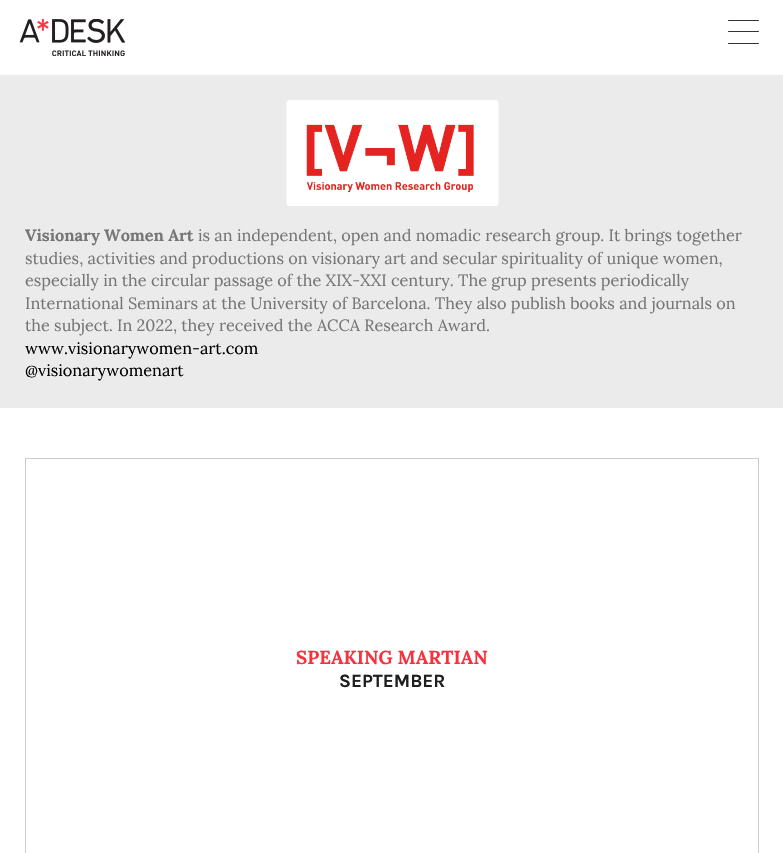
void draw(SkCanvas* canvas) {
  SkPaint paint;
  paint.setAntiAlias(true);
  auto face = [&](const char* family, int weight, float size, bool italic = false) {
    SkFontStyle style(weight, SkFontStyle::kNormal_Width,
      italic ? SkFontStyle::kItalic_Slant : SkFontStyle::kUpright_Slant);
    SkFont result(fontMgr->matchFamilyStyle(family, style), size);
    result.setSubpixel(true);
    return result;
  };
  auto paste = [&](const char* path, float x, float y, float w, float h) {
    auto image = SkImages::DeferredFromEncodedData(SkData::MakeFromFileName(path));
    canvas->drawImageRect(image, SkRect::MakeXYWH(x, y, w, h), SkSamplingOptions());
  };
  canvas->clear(0xffffffff);
  paste("img/1.png", 19, 19, 107, 37);
  paint.setColor(0xff333333);
  canvas->drawRoundRect(SkRect::MakeXYWH(728, 20, 31, 1), 0.5f, 0.5f, paint);
  canvas->drawRoundRect(SkRect::MakeXYWH(728, 31, 31, 1), 0.5f, 0.5f, paint);
  canvas->drawRoundRect(SkRect::MakeXYWH(728, 43, 31, 1), 0.5f, 0.5f, paint);
  paint.setColor(0xffebebeb);
  canvas->drawRect(SkRect::MakeXYWH(0, 75, 783, 333), paint);
  paste("img/2.png", 286, 100, 213, 106);
  paint.setStroke(true);
  paint.setStrokeWidth(1);
  paint.setColor(0xffcccccc);
  canvas->drawRect(SkRect::MakeXYWH(25.5f, 458.5f, 733, 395), paint);
  auto f0 = face("Lora", 700, 16.25f);
  paint.setStroke(false);
  paint.setColor(0xff767676);
  canvas->drawString("Visionary Women Art", 25, 241, f0, paint);
  auto f1 = face("Lora", 400, 16.25f);
  {
    const struct { const char* s; float x, y; } items[] = {
      {"is an independent, open and nomadic research group. It brings together", 198, 241},
      {"studies, activities and productions on visionary art and secular spirituality of unique women,", 25, 264},
      {"especially in the circular passage of the XIX-XXI century. The grup presents periodically", 25, 286},
      {"International Seminars at the University of Barcelona. They also publish books and journals on", 25, 309},
      {"the subject. In 2022, they received the ACCA Research Award.", 25, 331},
    };
    for (auto [s, x, y] : items) {
      canvas->drawString(s, x, y, f1, paint);
    }
  }
  paint.setColor(0xff000000);
  canvas->drawString("www.visionarywomen-art.com", 25, 354, f1, paint);
  canvas->drawString("@visionarywomenart", 25, 376, f1, paint);
  auto f2 = face("Lora", 700, 18.75f);
  paint.setColor(0xfff7323f);
  canvas->drawString("SPEAKING MARTIAN", 296, 664, f2, paint);
  auto f3 = face("Karla", 700, 18.75f);
  paint.setColor(0xff1f1f1f);
  canvas->drawString("SEPTEMBER", 339, 687, f3, paint);
}
